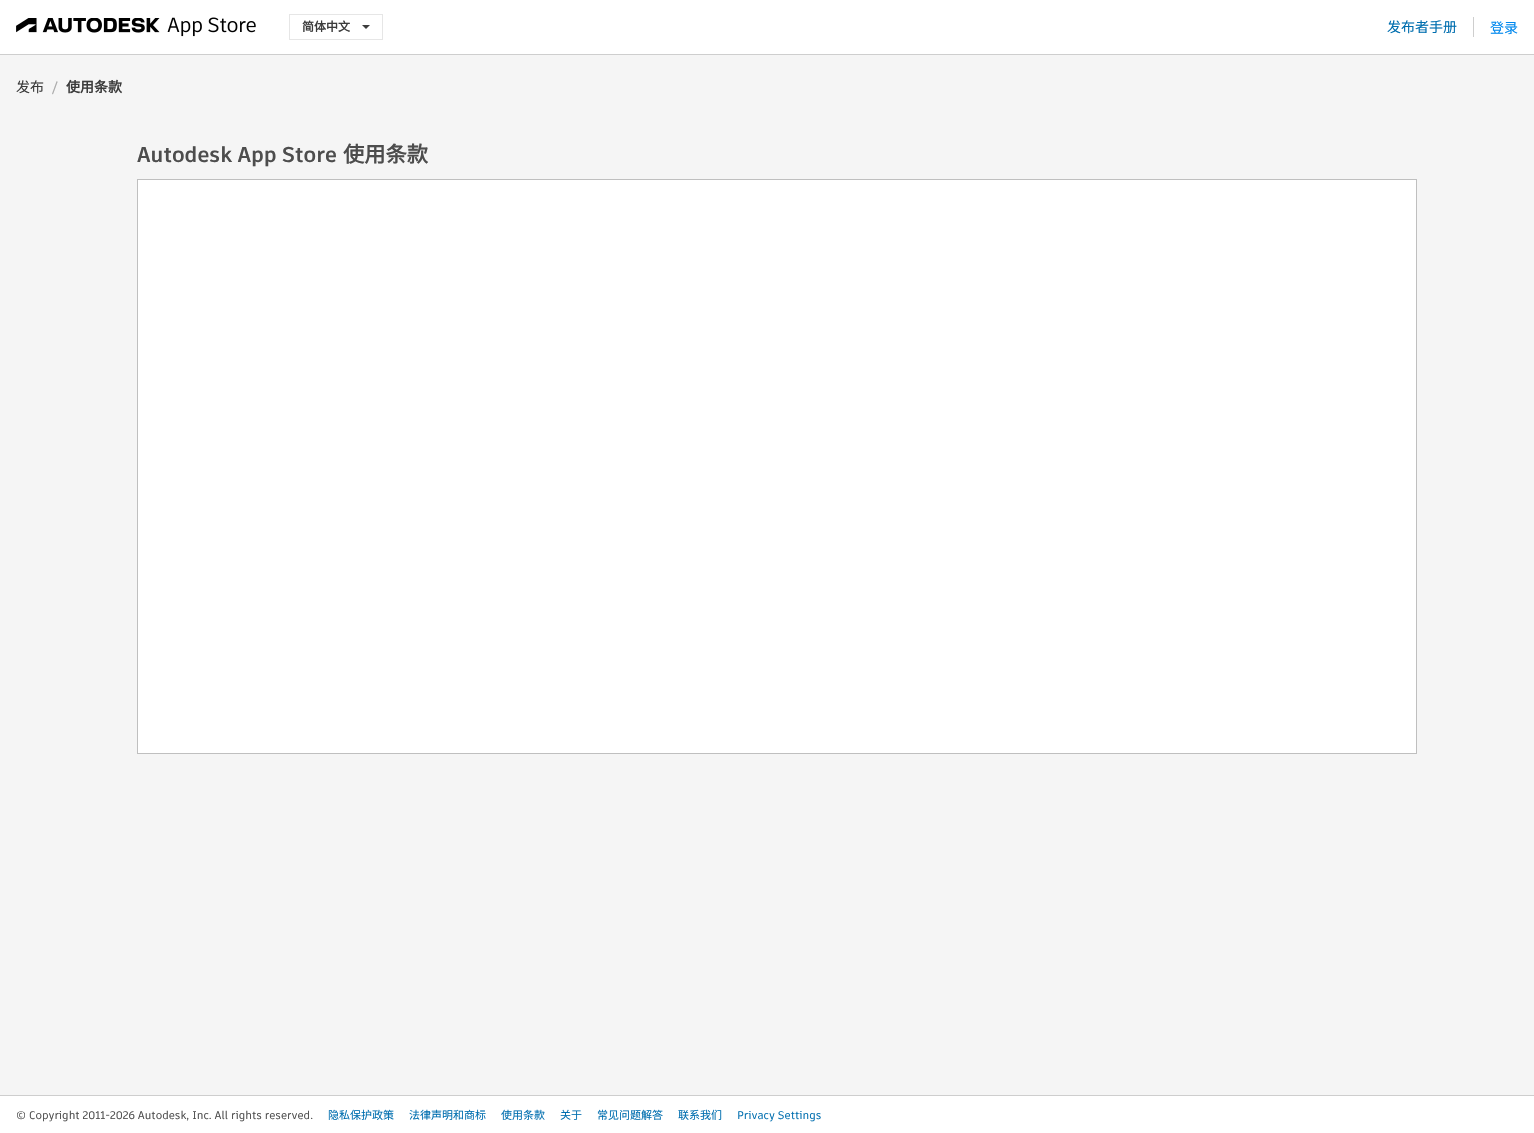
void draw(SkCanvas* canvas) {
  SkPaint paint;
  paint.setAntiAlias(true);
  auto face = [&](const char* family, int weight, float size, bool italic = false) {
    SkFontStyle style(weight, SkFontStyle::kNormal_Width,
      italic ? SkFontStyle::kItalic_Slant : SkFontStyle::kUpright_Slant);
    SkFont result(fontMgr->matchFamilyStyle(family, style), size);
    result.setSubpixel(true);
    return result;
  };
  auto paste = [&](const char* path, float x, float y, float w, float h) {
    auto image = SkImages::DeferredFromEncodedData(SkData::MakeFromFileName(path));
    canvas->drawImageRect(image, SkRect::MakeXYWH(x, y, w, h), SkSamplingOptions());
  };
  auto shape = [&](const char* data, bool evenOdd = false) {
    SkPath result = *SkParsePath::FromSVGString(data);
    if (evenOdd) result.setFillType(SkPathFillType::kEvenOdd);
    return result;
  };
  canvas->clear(0xfff5f5f5);
  paint.setColor(0xffffffff);
  canvas->drawRect(SkRect::MakeXYWH(0, 0, 1534, 54), paint);
  paint.setColor(0xffcecece);
  canvas->drawRect(SkRect::MakeXYWH(0, 54, 1534, 1), paint);
  paste("img/1.png", 16, 17, 240, 20);
  paint.setStroke(true);
  paint.setStrokeWidth(1);
  paint.setColor(0xffe6e6e6);
  canvas->drawRect(SkRect::MakeXYWH(289.5f, 14.5f, 93, 25), paint);
  paint.setStroke(false);
  paint.setColor(0xff3c3c3c);
  canvas->drawPath(shape("M362 25H370L366 29Z"), paint);
  paint.setColor(0xffcecece);
  canvas->drawRect(SkRect::MakeXYWH(1473, 17, 1, 20), paint);
  paint.setColor(0xffffffff);
  canvas->drawRect(SkRect::MakeXYWH(137.5f, 179.5f, 1279, 574), paint);
  paint.setStroke(true);
  paint.setColor(0xffbfbfbf);
  canvas->drawRect(SkRect::MakeXYWH(137.5f, 179.5f, 1279, 574), paint);
  paint.setStroke(false);
  paint.setColor(0xffffffff);
  canvas->drawRect(SkRect::MakeXYWH(0, 1096, 1534, 37), paint);
  paint.setColor(0xffcecece);
  canvas->drawRect(SkRect::MakeXYWH(0, 1095, 1534, 1), paint);
  auto f0 = face("Noto Sans CJK SC", 700, 12);
  paint.setColor(0xff3c3c3c);
  canvas->drawString("简体中文", 302, 31, f0, paint);
  auto f1 = face("Noto Sans CJK SC", 400, 14);
  paint.setColor(0xff006eaf);
  canvas->drawString("发布者手册", 1387, 32, f1, paint);
  paint.setColor(0xff0088ee);
  canvas->drawString("登录", 1490, 33, f1, paint);
  paint.setColor(0xff3c3c3c);
  canvas->drawString("发布", 16, 92, f1, paint);
  auto f2 = face("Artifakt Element", 500, 14);
  paint.setColor(0xffababab);
  canvas->drawString("/", 52, 92, f2, paint);
  auto f3 = face("Noto Sans CJK SC", 700, 14);
  paint.setColor(0xff3c3c3c);
  canvas->drawString("使用条款", 66, 92, f3, paint);
  auto f4 = face("Artifakt Element", 700, 21.25f);
  paint.setColor(0xff4d4d4d);
  canvas->drawString("Autodesk App Store", 137, 162, f4, paint);
  auto f5 = face("Noto Sans CJK SC", 700, 21.25f);
  canvas->drawString("使用条款", 343, 162, f5, paint);
  auto f6 = face("Artifakt Element", 500, 11);
  canvas->drawString("© Copyright 2011-2026 Autodesk, Inc. All rights reserved.", 16, 1119, f6, paint);
  auto f7 = face("Noto Sans CJK SC", 400, 11);
  paint.setColor(0xff006eaf);
  {
    const struct { const char* s; float x, y; } items[] = {
      {"隐私保护政策", 328, 1119},
      {"法律声明和商标", 409, 1119},
      {"使用条款", 501, 1119},
      {"关于", 560, 1119},
      {"常见问题解答", 597, 1119},
      {"联系我们", 678, 1119},
    };
    for (auto [s, x, y] : items) {
      canvas->drawString(s, x, y, f7, paint);
    }
  }
  canvas->drawString("Privacy Settings", 737, 1119, f6, paint);
}
